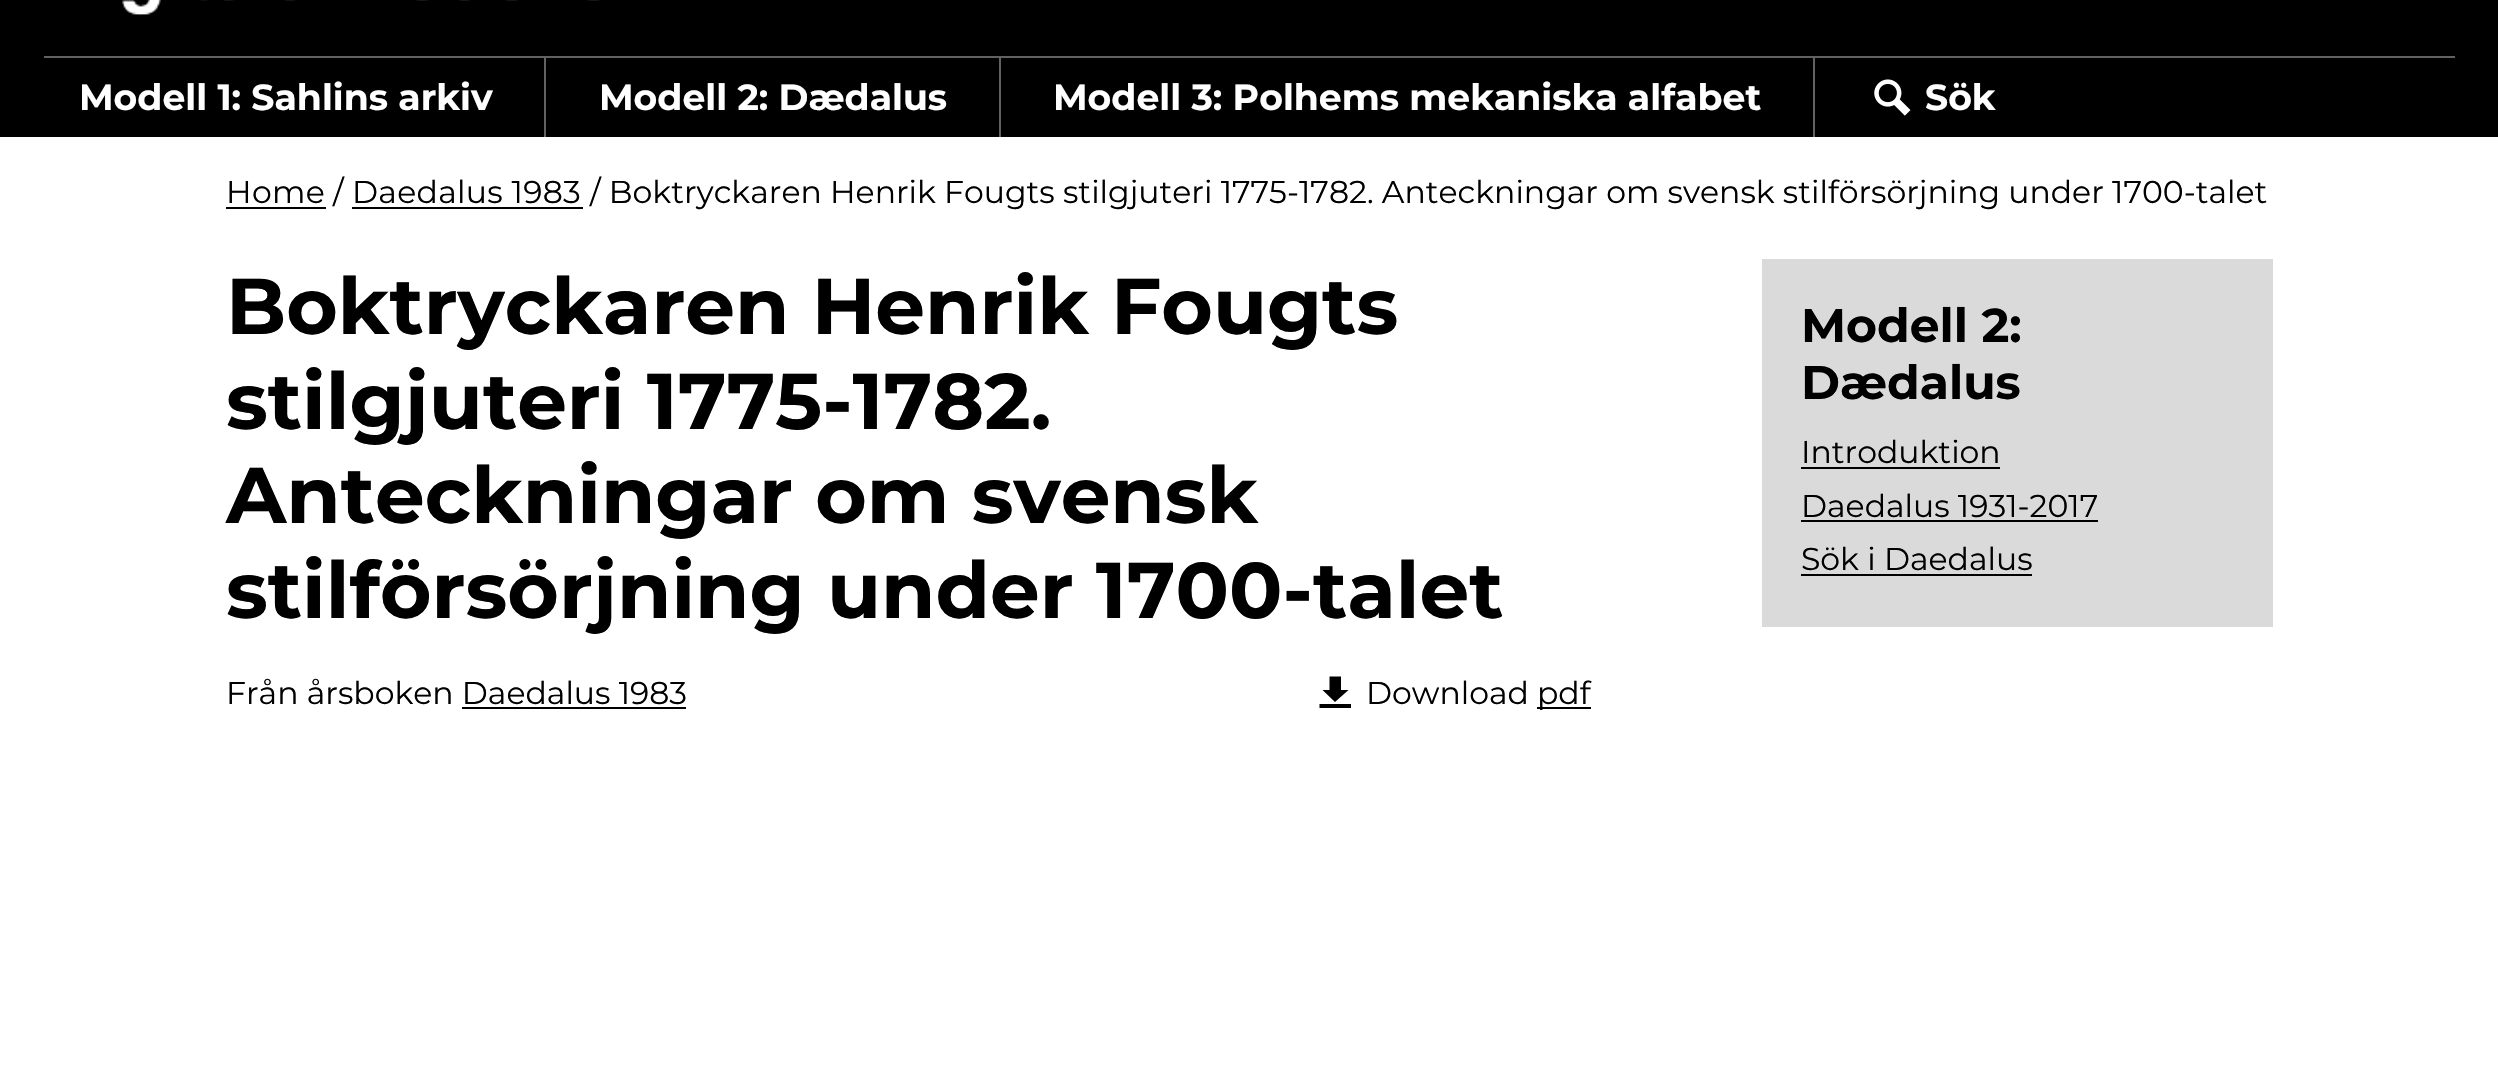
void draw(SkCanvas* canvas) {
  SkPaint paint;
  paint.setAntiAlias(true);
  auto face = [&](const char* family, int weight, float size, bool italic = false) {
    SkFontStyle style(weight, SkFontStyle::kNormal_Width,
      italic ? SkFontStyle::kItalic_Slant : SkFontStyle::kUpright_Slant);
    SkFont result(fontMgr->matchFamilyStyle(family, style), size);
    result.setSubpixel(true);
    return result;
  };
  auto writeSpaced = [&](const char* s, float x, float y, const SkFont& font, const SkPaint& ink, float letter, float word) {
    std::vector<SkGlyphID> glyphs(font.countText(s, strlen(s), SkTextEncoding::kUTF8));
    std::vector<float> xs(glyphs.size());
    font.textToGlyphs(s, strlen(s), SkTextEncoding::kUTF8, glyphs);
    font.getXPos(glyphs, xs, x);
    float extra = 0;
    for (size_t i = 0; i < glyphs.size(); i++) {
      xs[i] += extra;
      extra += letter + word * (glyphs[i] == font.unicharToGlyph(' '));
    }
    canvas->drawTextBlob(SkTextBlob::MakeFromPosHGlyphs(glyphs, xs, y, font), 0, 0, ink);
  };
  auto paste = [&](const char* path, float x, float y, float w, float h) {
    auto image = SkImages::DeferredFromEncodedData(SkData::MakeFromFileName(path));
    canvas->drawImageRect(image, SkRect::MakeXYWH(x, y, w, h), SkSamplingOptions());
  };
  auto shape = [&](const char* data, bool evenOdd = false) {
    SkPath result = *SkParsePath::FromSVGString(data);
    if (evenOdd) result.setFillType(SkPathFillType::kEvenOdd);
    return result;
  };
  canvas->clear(0xffffffff);
  paint.setColor(0xff000000);
  canvas->drawRect(SkRect::MakeXYWH(0, 0, 2498, 137), paint);
  paste("img/1.png", 122, 0, 478, 16);
  {
    const struct { float x, y, w, h; SkColor color; } items[] = {
      {44, 56, 2411, 2, 0xff616161},
      {544, 58, 2, 79, 0xff616161},
      {999, 58, 2, 79, 0xff616161},
      {1813, 58, 2, 79, 0xff616161},
    };
    for (auto [x, y, w, h, color] : items) {
      paint.setColor(color);
      canvas->drawRect(SkRect::MakeXYWH(x, y, w, h), paint);
    }
  }
  paste("img/2.png", 1874, 79, 37, 37);
  {
    const struct { float x, y, w, h; SkColor color; } items[] = {
      {226, 207, 100, 2, 0xff000000},
      {352, 207, 231, 2, 0xff000000},
      {462, 707, 224, 2, 0xff000000},
    };
    for (auto [x, y, w, h, color] : items) {
      paint.setColor(color);
      canvas->drawRect(SkRect::MakeXYWH(x, y, w, h), paint);
    }
  }
  canvas->drawPath(shape("M1319.5 708V704H1351V708ZM1322.5 690H1329.5V676.5H1341V690H1348.5L1335 702Z"), paint);
  {
    const struct { float x, y, w, h; SkColor color; } items[] = {
      {1537, 707, 54, 2, 0xff000000},
      {1762, 259, 511, 368, 0xffdadada},
      {1801, 467, 199, 2, 0xff000000},
      {1801, 520, 297, 2, 0xff000000},
      {1801, 574, 231, 2, 0xff000000},
    };
    for (auto [x, y, w, h, color] : items) {
      paint.setColor(color);
      canvas->drawRect(SkRect::MakeXYWH(x, y, w, h), paint);
    }
  }
  auto f0 = face("Montserrat", 700, 36.25f);
  paint.setColor(0xffffffff);
  {
    const struct { const char* s; float x, y; } items[] = {
      {"Modell 1: Sahlins arkiv", 79, 110},
      {"Modell 2: Dædalus", 599, 110},
      {"Modell 3: Polhems mekaniska alfabet", 1053, 110},
      {"Sök", 1925, 110},
    };
    for (auto [s, x, y] : items) {
      canvas->drawString(s, x, y, f0, paint);
    }
  }
  auto f1 = face("Montserrat", 400, 31.5f);
  paint.setColor(0xff000000);
  writeSpaced("Home", 226, 203, f1, paint, 0.3f, 0);
  canvas->drawString("/", 333, 203, f1, paint);
  writeSpaced("Daedalus 1983", 352, 203, f1, paint, 0.3f, 0);
  canvas->drawString("/ Boktryckaren Henrik Fougts stilgjuteri 1775-1782. Anteckningar om svensk stilförsörjning under 1700-talet", 590, 203, f1, paint);
  auto f2 = face("Montserrat", 700, 78.75f);
  {
    const struct { const char* s; float x, y; } items[] = {
      {"Boktryckaren Henrik Fougts", 226, 334},
      {"stilgjuteri 1775-1782.", 226, 429},
      {"Anteckningar om svensk", 226, 523},
      {"stilförsörjning under 1700-talet", 226, 618},
    };
    for (auto [s, x, y] : items) {
      canvas->drawString(s, x, y, f2, paint);
    }
  }
  {
    const struct { const char* s; float x, y; } items[] = {
      {"Från årsboken Daedalus 1983", 226, 704},
      {"Download", 1366, 704},
      {"pdf", 1537, 704},
    };
    for (auto [s, x, y] : items) {
      canvas->drawString(s, x, y, f1, paint);
    }
  }
  auto f3 = face("Montserrat", 700, 47.25f);
  canvas->drawString("Modell 2:", 1801, 342, f3, paint);
  canvas->drawString("Dædalus", 1801, 399, f3, paint);
  {
    const struct { const char* s; float x, y; } items[] = {
      {"Introduktion", 1801, 463},
      {"Daedalus 1931-2017", 1801, 517},
      {"Sök i Daedalus", 1801, 570},
    };
    for (auto [s, x, y] : items) {
      canvas->drawString(s, x, y, f1, paint);
    }
  }
}
